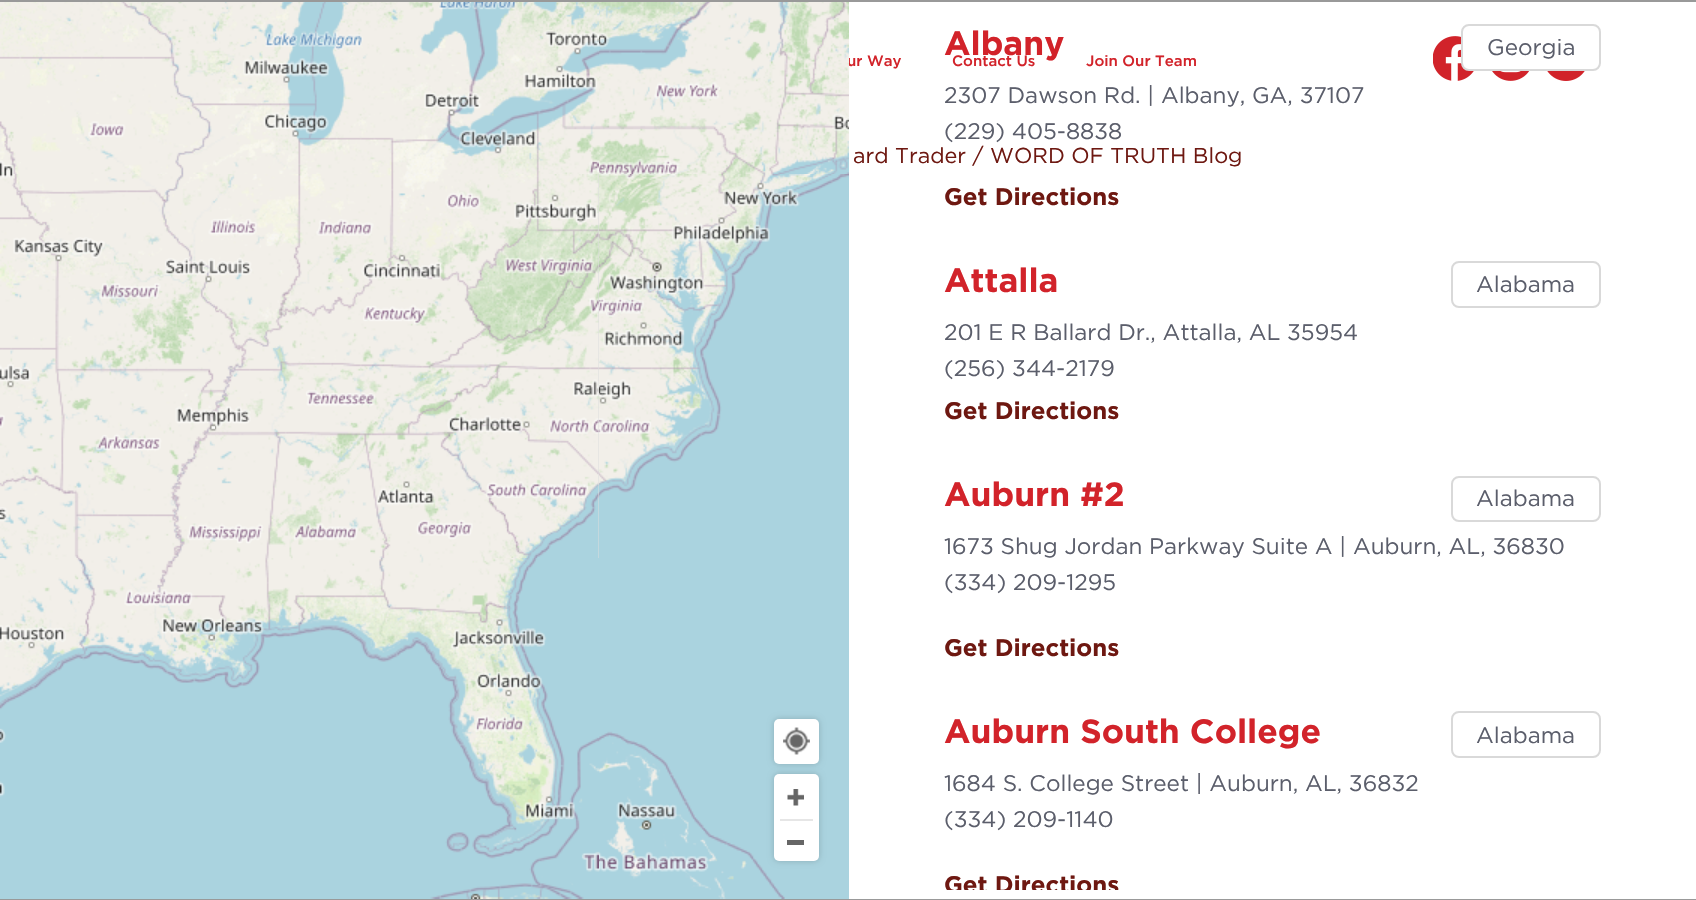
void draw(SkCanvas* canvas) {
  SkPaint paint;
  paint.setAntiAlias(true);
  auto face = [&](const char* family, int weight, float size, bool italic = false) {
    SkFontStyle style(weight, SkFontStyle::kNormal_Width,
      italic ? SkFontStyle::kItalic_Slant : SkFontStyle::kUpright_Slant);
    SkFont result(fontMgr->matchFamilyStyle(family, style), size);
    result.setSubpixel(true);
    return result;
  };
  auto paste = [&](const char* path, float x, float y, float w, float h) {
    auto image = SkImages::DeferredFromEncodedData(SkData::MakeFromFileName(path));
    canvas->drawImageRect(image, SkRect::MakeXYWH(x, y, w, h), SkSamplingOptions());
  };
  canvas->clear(0xffffffff);
  {
    const struct { float x, y, w, h; SkColor color; } items[] = {
      {0, 0, 1696, 2, 0xff999999},
      {0, 899, 1696, 1, 0xff999999},
      {598, 174, 1, 384, 0xffdddddd},
    };
    for (auto [x, y, w, h, color] : items) {
      paint.setColor(color);
      canvas->drawRect(SkRect::MakeXYWH(x, y, w, h), paint);
    }
  }
  paste("img/1.png", 0, 2, 215, 172);
  paste("img/2.png", 215, 2, 384, 172);
  paste("img/4.png", 0, 174, 215, 384);
  paste("img/5.png", 215, 174, 384, 384);
  paste("img/6.png", 599, 174, 250, 384);
  paste("img/7.png", 0, 558, 215, 341);
  paste("img/8.png", 215, 558, 384, 341);
  paste("img/9.png", 599, 558, 250, 341);
  paint.setColor(0x2e000000);
  paint.setMaskFilter(SkMaskFilter::MakeBlur(kNormal_SkBlurStyle, 3));
  canvas->drawRoundRect(SkRect::MakeXYWH(774, 719, 45, 45), 5, 5, paint);
  paint.setMaskFilter(nullptr);
  paint.setColor(0xffffffff);
  canvas->drawRoundRect(SkRect::MakeXYWH(774, 719, 45, 45), 5, 5, paint);
  paste("img/10.png", 783, 727, 27, 28);
  paint.setColor(0x2e000000);
  paint.setMaskFilter(SkMaskFilter::MakeBlur(kNormal_SkBlurStyle, 3));
  canvas->drawRoundRect(SkRect::MakeXYWH(774, 774, 45, 87), 5, 5, paint);
  paint.setMaskFilter(nullptr);
  paint.setColor(0xffffffff);
  canvas->drawRoundRect(SkRect::MakeXYWH(774, 774, 45, 87), 5, 5, paint);
  paste("img/11.png", 787, 789, 17, 17);
  paint.setColor(0xffe6e6e6);
  canvas->drawRect(SkRect::MakeXYWH(780, 819, 33, 2), paint);
  paint.setColor(0xff666666);
  canvas->drawRect(SkRect::MakeXYWH(787, 840, 17, 5), paint);
  paste("img/12.png", 1433, 36, 41, 45);
  paint.setColor(0xffffffff);
  canvas->drawRoundRect(SkRect::MakeXYWH(1462, 25, 138, 45), 7, 7, paint);
  paint.setStroke(true);
  paint.setStrokeWidth(2);
  paint.setColor(0xffd9d9d9);
  canvas->drawRoundRect(SkRect::MakeXYWH(1462, 25, 138, 45), 7, 7, paint);
  canvas->drawRoundRect(SkRect::MakeXYWH(1452, 262, 148, 45), 7, 7, paint);
  canvas->drawRoundRect(SkRect::MakeXYWH(1452, 477, 148, 44), 7, 7, paint);
  canvas->drawRoundRect(SkRect::MakeXYWH(1452, 712, 148, 45), 7, 7, paint);
  paste("img/13.png", 1492, 71, 37, 10);
  paste("img/14.png", 1547, 71, 38, 10);
  auto f0 = face("Gotham", 400, 22.5f);
  paint.setStroke(false);
  paint.setColor(0xff5b5e6b);
  {
    const struct { const char* s; float x, y; } items[] = {
      {"Georgia", 1487, 55},
      {"2307 Dawson Rd. | Albany, GA, 37107", 944, 103},
      {"(229) 405-8838", 944, 139},
    };
    for (auto [s, x, y] : items) {
      canvas->drawString(s, x, y, f0, paint);
    }
  }
  auto f1 = face("Gotham", 700, 24);
  paint.setColor(0xff6e1811);
  canvas->drawString("Get Directions", 944, 205, f1, paint);
  auto f2 = face("Gotham", 700, 33.6f);
  paint.setColor(0xffd2232a);
  canvas->drawString("Attalla", 944, 292, f2, paint);
  paint.setColor(0xff5b5e6b);
  {
    const struct { const char* s; float x, y; } items[] = {
      {"Alabama", 1476, 292},
      {"201 E R Ballard Dr., Attalla, AL 35954", 944, 340},
      {"(256) 344-2179", 944, 376},
    };
    for (auto [s, x, y] : items) {
      canvas->drawString(s, x, y, f0, paint);
    }
  }
  paint.setColor(0xff6e1811);
  canvas->drawString("Get Directions", 944, 419, f1, paint);
  paint.setColor(0xffd2232a);
  canvas->drawString("Auburn #2", 944, 506, f2, paint);
  paint.setColor(0xff5b5e6b);
  {
    const struct { const char* s; float x, y; } items[] = {
      {"Alabama", 1476, 506},
      {"1673 Shug Jordan Parkway Suite A | Auburn, AL, 36830", 944, 554},
      {"(334) 209-1295", 944, 590},
    };
    for (auto [s, x, y] : items) {
      canvas->drawString(s, x, y, f0, paint);
    }
  }
  paint.setColor(0xff6e1811);
  canvas->drawString("Get Directions", 944, 656, f1, paint);
  paint.setColor(0xffd2232a);
  canvas->drawString("Auburn South College", 944, 743, f2, paint);
  paint.setColor(0xff5b5e6b);
  {
    const struct { const char* s; float x, y; } items[] = {
      {"Alabama", 1476, 743},
      {"1684 S. College Street | Auburn, AL, 36832", 944, 791},
      {"(334) 209-1140", 944, 827},
    };
    for (auto [s, x, y] : items) {
      canvas->drawString(s, x, y, f0, paint);
    }
  }
  canvas->save();
  canvas->clipRect(SkRect::MakeXYWH(849, 11, 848, 879));
  paint.setColor(0xff6e1811);
  canvas->drawString("Get Directions", 944, 893, f1, paint);
  canvas->restore();
  auto f3 = face("Gotham", 500, 15);
  paint.setColor(0xffd2232a);
  canvas->drawString("ur Way", 847, 66, f3, paint);
  paste("img/3.png", 599, 2, 250, 172);
  canvas->drawString("Contact Us", 952, 66, f3, paint);
  canvas->drawString("Albany", 944, 55, f2, paint);
  canvas->drawString("Join Our Team", 1086, 66, f3, paint);
  auto f4 = face("Gotham", 400, 21.6f);
  paint.setColor(0xff6e1811);
  canvas->drawString("ard Trader / WORD OF TRUTH Blog", 853, 163, f4, paint);
}
